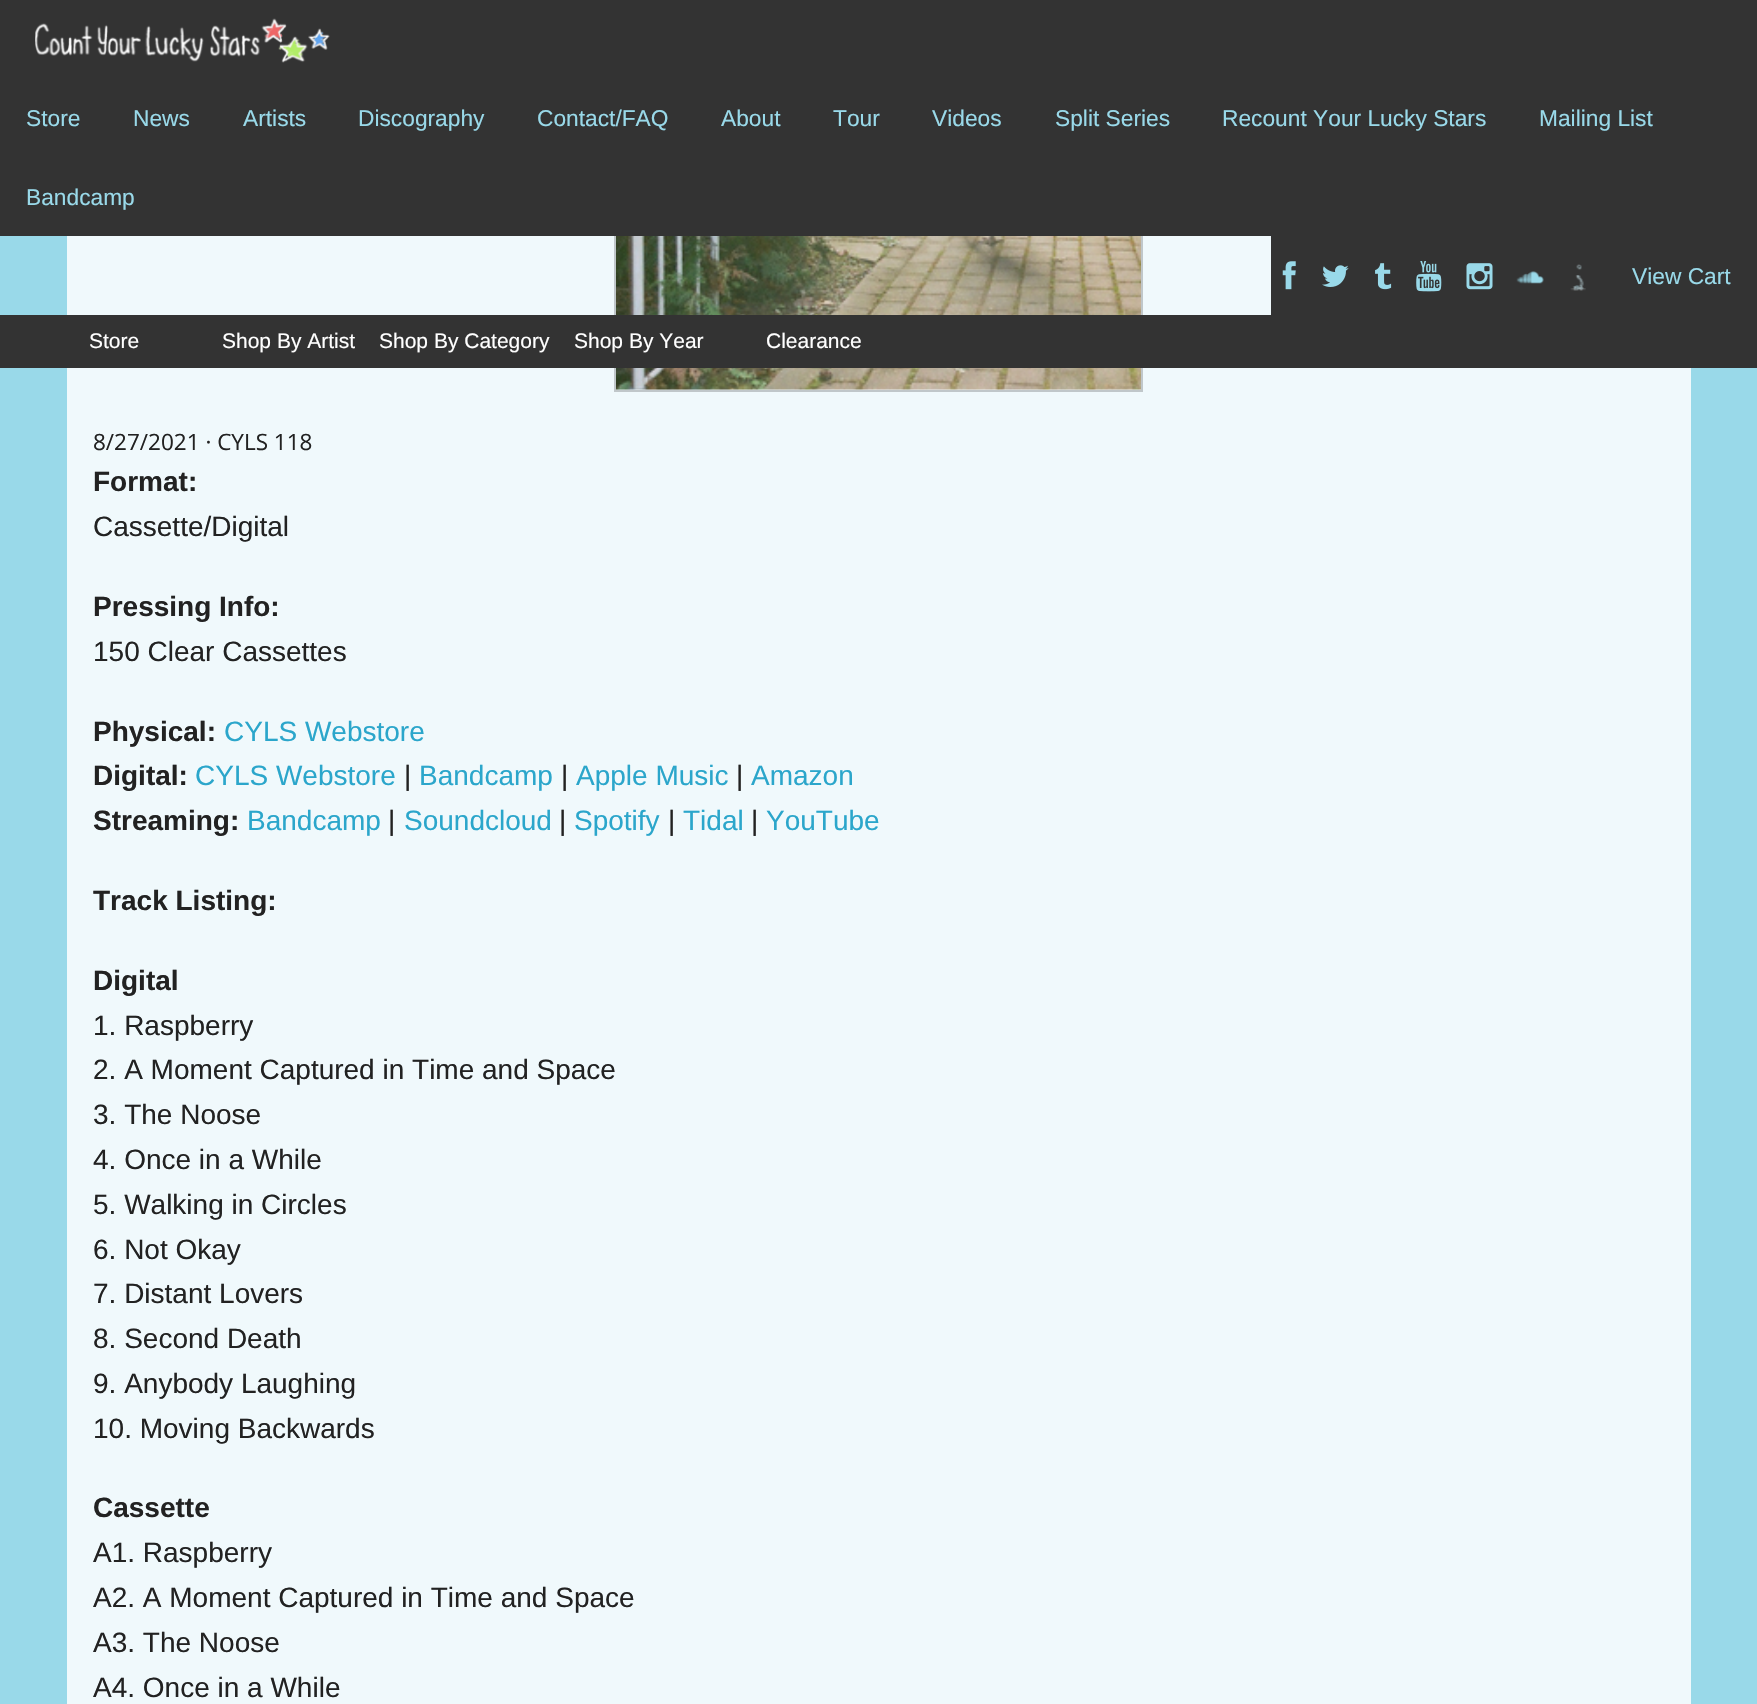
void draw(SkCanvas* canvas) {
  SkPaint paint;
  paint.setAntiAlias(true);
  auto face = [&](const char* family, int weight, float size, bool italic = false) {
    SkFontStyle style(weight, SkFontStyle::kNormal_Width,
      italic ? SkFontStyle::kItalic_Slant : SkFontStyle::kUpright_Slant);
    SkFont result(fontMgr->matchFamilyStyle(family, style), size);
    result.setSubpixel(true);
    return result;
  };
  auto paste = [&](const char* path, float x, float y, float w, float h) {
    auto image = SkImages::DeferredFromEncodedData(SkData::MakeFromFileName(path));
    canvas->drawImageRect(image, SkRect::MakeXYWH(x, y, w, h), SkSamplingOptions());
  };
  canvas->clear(0xff99d9e9);
  paint.setColor(0xfff0f9fc);
  canvas->drawRect(SkRect::MakeXYWH(67, 236, 1624, 1468), paint);
  paint.setStroke(true);
  paint.setStrokeWidth(2);
  paint.setColor(0xffc0c7ca);
  canvas->drawRect(SkRect::MakeXYWH(615, -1, 527, 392), paint);
  paint.setStroke(false);
  paint.setColor(0xff333333);
  canvas->drawRect(SkRect::MakeXYWH(0, 0, 1757, 236), paint);
  paste("img/1.png", 35, 18, 295, 45);
  canvas->drawRect(SkRect::MakeXYWH(1271, 236, 486, 79), paint);
  paste("img/2.png", 1282, 261, 14, 29);
  paste("img/3.png", 1322, 265, 27, 22);
  paste("img/4.png", 1375, 263, 17, 27);
  paste("img/5.png", 1416, 261, 26, 31);
  paste("img/6.png", 1466, 263, 27, 27);
  paste("img/7.png", 1516, 271, 28, 13);
  paste("img/8.png", 1570, 264, 16, 27);
  paste("img/9.png", 616, 236, 525, 154);
  canvas->drawRect(SkRect::MakeXYWH(0, 315, 1757, 53), paint);
  auto f0 = face("Liberation Sans", 400, 22.75f);
  paint.setColor(0xff99d9e9);
  {
    const struct { const char* s; float x, y; } items[] = {
      {"Store", 26, 126},
      {"News", 133, 126},
      {"Artists", 243, 126},
      {"Discography", 358, 126},
      {"Contact/FAQ", 537, 126},
      {"About", 721, 126},
      {"Tour", 833, 126},
      {"Videos", 932, 126},
      {"Split Series", 1055, 126},
      {"Recount Your Lucky Stars", 1222, 126},
      {"Mailing List", 1539, 126},
      {"Bandcamp", 26, 205},
      {"View Cart", 1632, 284},
    };
    for (auto [s, x, y] : items) {
      canvas->drawString(s, x, y, f0, paint);
    }
  }
  auto f1 = face("Liberation Sans", 400, 21);
  paint.setColor(0xffffffff);
  {
    const struct { const char* s; float x, y; } items[] = {
      {"Store", 89, 348},
      {"Shop By Artist", 222, 348},
      {"Shop By Category", 379, 348},
      {"Shop By Year", 574, 348},
      {"Clearance", 766, 348},
    };
    for (auto [s, x, y] : items) {
      canvas->drawString(s, x, y, f1, paint);
    }
  }
  auto f2 = face("Open Sans", 400, 22.5f);
  paint.setColor(0xff222222);
  canvas->drawString("8/27/2021 · CYLS 118", 93, 450, f2, paint);
  auto f3 = face("Liberation Sans", 700, 28);
  canvas->drawString("Format:", 93, 491, f3, paint);
  auto f4 = face("Liberation Sans", 400, 28);
  canvas->drawString("Cassette/Digital", 93, 536, f4, paint);
  canvas->drawString("Pressing Info:", 93, 616, f3, paint);
  canvas->drawString("150 Clear Cassettes", 93, 661, f4, paint);
  canvas->drawString("Physical:", 93, 741, f3, paint);
  paint.setColor(0xff2ba6cb);
  canvas->drawString("CYLS Webstore", 224, 741, f4, paint);
  paint.setColor(0xff222222);
  canvas->drawString("Digital:", 93, 785, f3, paint);
  paint.setColor(0xff2ba6cb);
  canvas->drawString("CYLS Webstore", 195, 785, f4, paint);
  paint.setColor(0xff222222);
  canvas->drawString("|", 404, 785, f4, paint);
  paint.setColor(0xff2ba6cb);
  canvas->drawString("Bandcamp", 419, 785, f4, paint);
  paint.setColor(0xff222222);
  canvas->drawString("|", 561, 785, f4, paint);
  paint.setColor(0xff2ba6cb);
  canvas->drawString("Apple Music", 576, 785, f4, paint);
  paint.setColor(0xff222222);
  canvas->drawString("|", 736, 785, f4, paint);
  paint.setColor(0xff2ba6cb);
  canvas->drawString("Amazon", 751, 785, f4, paint);
  paint.setColor(0xff222222);
  canvas->drawString("Streaming:", 93, 830, f3, paint);
  paint.setColor(0xff2ba6cb);
  canvas->drawString("Bandcamp", 247, 830, f4, paint);
  paint.setColor(0xff222222);
  canvas->drawString("|", 388, 830, f4, paint);
  paint.setColor(0xff2ba6cb);
  canvas->drawString("Soundcloud", 404, 830, f4, paint);
  paint.setColor(0xff222222);
  canvas->drawString("|", 559, 830, f4, paint);
  paint.setColor(0xff2ba6cb);
  canvas->drawString("Spotify", 574, 830, f4, paint);
  paint.setColor(0xff222222);
  canvas->drawString("|", 668, 830, f4, paint);
  paint.setColor(0xff2ba6cb);
  canvas->drawString("Tidal", 683, 830, f4, paint);
  paint.setColor(0xff222222);
  canvas->drawString("|", 751, 830, f4, paint);
  paint.setColor(0xff2ba6cb);
  canvas->drawString("YouTube", 766, 830, f4, paint);
  paint.setColor(0xff222222);
  canvas->drawString("Track Listing:", 93, 910, f3, paint);
  canvas->drawString("Digital", 93, 990, f3, paint);
  {
    const struct { const char* s; float x, y; } items[] = {
      {"1. Raspberry", 93, 1035},
      {"2. A Moment Captured in Time and Space", 93, 1079},
      {"3. The Noose", 93, 1124},
      {"4. Once in a While", 93, 1169},
      {"5. Walking in Circles", 93, 1214},
      {"6. Not Okay", 93, 1259},
      {"7. Distant Lovers", 93, 1303},
      {"8. Second Death", 93, 1348},
      {"9. Anybody Laughing", 93, 1393},
      {"10. Moving Backwards", 93, 1438},
    };
    for (auto [s, x, y] : items) {
      canvas->drawString(s, x, y, f4, paint);
    }
  }
  canvas->drawString("Cassette", 93, 1517, f3, paint);
  {
    const struct { const char* s; float x, y; } items[] = {
      {"A1. Raspberry", 93, 1562},
      {"A2. A Moment Captured in Time and Space", 93, 1607},
      {"A3. The Noose", 93, 1652},
      {"A4. Once in a While", 93, 1697},
    };
    for (auto [s, x, y] : items) {
      canvas->drawString(s, x, y, f4, paint);
    }
  }
}
